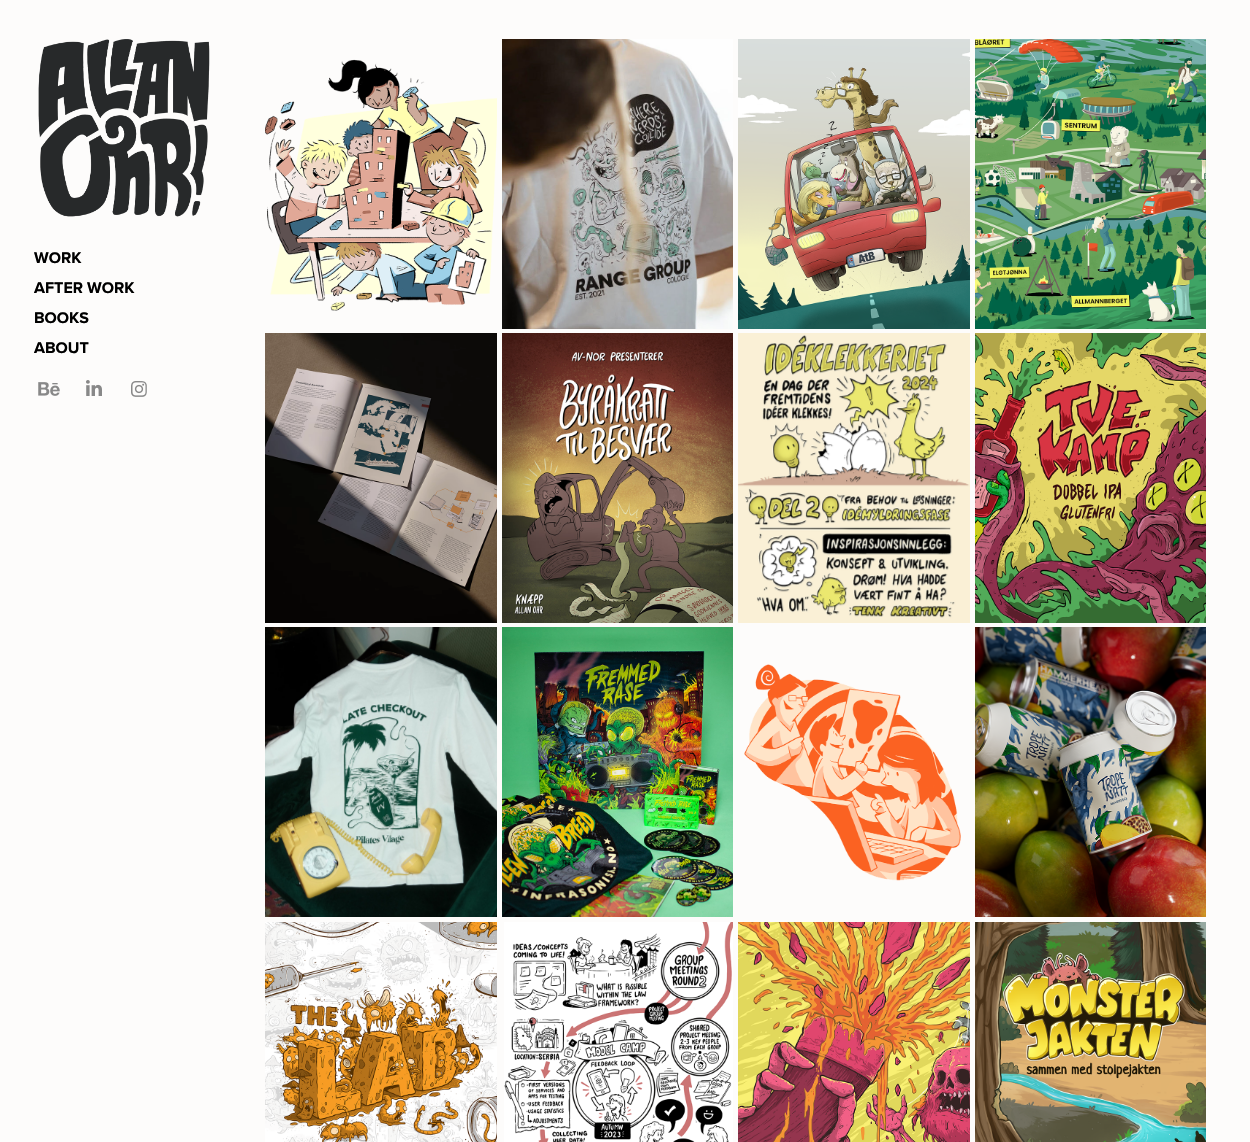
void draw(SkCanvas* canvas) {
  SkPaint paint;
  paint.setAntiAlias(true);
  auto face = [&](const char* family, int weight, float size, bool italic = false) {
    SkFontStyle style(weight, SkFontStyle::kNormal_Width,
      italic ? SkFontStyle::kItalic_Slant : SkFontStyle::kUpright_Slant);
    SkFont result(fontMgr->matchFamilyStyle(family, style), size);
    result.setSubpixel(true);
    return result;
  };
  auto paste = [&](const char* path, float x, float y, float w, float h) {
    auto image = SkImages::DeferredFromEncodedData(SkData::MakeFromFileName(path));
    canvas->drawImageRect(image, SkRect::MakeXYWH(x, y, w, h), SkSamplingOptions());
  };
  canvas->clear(0xfffdfcfb);
  paste("img/1.png", 38, 39, 172, 178);
  paste("img/2.png", 38, 382, 22, 14);
  paste("img/3.png", 86, 380, 16, 16);
  paste("img/4.png", 131, 381, 16, 16);
  paste("img/5.png", 265, 59, 232, 252);
  paste("img/6.png", 502, 39, 231, 290);
  paste("img/7.png", 738, 39, 232, 290);
  paste("img/8.png", 975, 39, 231, 290);
  paste("img/9.png", 265, 333, 232, 290);
  paste("img/10.png", 502, 333, 231, 290);
  paste("img/11.png", 738, 333, 232, 290);
  paste("img/12.png", 975, 333, 231, 290);
  paste("img/13.png", 265, 627, 232, 290);
  paste("img/14.png", 502, 627, 231, 290);
  paste("img/15.png", 744, 664, 217, 217);
  paste("img/16.png", 975, 627, 231, 290);
  paste("img/17.png", 265, 922, 232, 220);
  paste("img/18.png", 504, 922, 229, 220);
  paste("img/19.png", 738, 922, 232, 220);
  paste("img/20.png", 975, 922, 231, 220);
  auto f0 = face("Proxima Nova", 700, 16);
  paint.setColor(0xff000000);
  {
    const struct { const char* s; float x, y; } items[] = {
      {"WORK", 34, 263},
      {"AFTER WORK", 34, 293},
      {"BOOKS", 34, 323},
      {"ABOUT", 34, 353},
    };
    for (auto [s, x, y] : items) {
      canvas->drawString(s, x, y, f0, paint);
    }
  }
}
